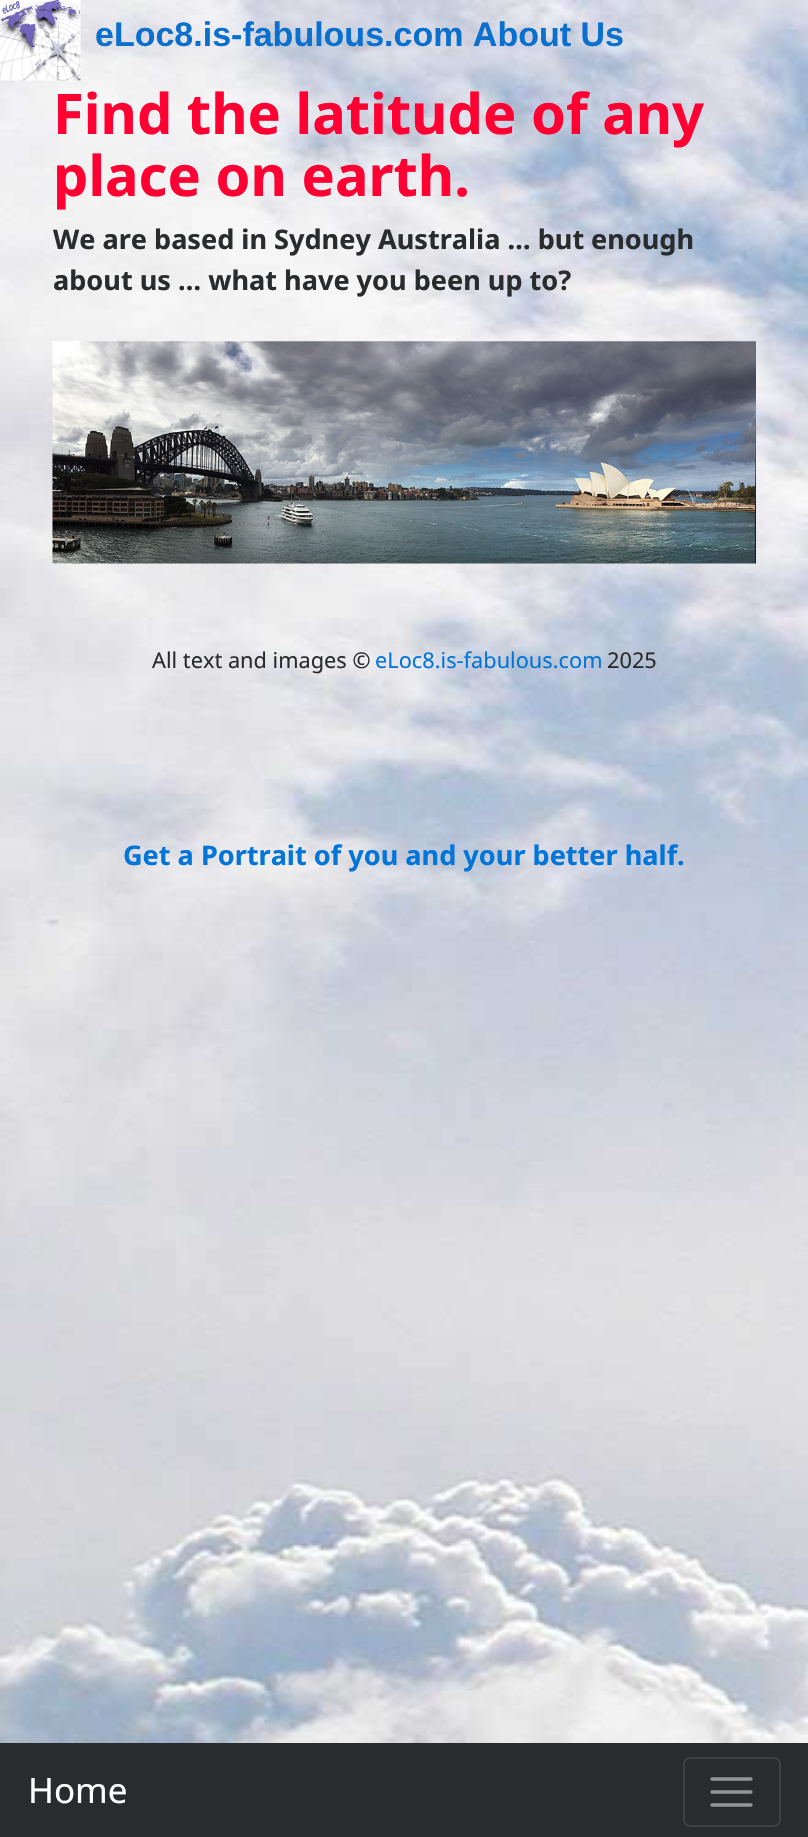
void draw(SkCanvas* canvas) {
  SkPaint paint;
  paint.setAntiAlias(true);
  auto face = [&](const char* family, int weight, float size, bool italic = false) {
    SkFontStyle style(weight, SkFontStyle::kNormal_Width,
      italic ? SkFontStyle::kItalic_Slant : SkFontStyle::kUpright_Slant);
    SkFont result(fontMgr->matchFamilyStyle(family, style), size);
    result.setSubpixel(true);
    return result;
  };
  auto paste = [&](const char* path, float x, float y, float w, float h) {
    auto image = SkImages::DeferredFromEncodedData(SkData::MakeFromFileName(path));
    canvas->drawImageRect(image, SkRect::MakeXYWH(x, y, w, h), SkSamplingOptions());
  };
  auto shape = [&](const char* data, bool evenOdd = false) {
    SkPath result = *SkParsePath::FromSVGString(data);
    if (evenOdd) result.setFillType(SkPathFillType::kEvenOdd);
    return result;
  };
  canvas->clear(0xffffffff);
  paste("img/1.png", 0, 0, 808, 1743);
  paste("img/2.png", 0, 0, 81, 81);
  paste("img/3.png", 52, 341, 704, 223);
  paint.setColor(0xff292b2c);
  canvas->drawRect(SkRect::MakeXYWH(0, 1743, 808, 94), paint);
  paint.setStroke(true);
  paint.setStrokeWidth(2);
  paint.setColor(0xff3e4041);
  canvas->drawRoundRect(SkRect::MakeXYWH(684, 1758, 96, 68), 6, 6, paint);
  paint.setStrokeWidth(3.3f);
  paint.setStrokeCap(SkPaint::kRound_Cap);
  paint.setColor(0xff949596);
  canvas->drawPath(shape("M712 1779H751M712 1792H751M712 1805H751"), paint);
  auto f0 = face("Liberation Sans", 700, 34);
  paint.setStroke(false);
  paint.setColor(0xff0a6fcd);
  canvas->drawString("eLoc8.is-fabulous.com About Us", 95, 46, f0, paint);
  auto f1 = face("Noto Sans", 700, 56);
  paint.setColor(0xffff0033);
  canvas->drawString("Find the latitude of any", 53, 134, f1, paint);
  canvas->drawString("place on earth.", 53, 196, f1, paint);
  auto f2 = face("Noto Sans", 700, 27.1f);
  paint.setColor(0xff292b2c);
  {
    const struct { const char* s; float x, y; } items[] = {
      {"We are based in Sydney Australia … but", 53, 249},
      {"enough", 591, 249},
      {"about us … what have you been up to?", 53, 290},
    };
    for (auto [s, x, y] : items) {
      canvas->drawString(s, x, y, f2, paint);
    }
  }
  auto f3 = face("Noto Sans", 400, 21.75f);
  canvas->drawString("All text and images ©", 152, 668, f3, paint);
  paint.setColor(0xff0275d8);
  canvas->drawString("eLoc8.is-fabulous.com", 375, 668, f3, paint);
  paint.setColor(0xff292b2c);
  canvas->drawString("2025", 607, 668, f3, paint);
  paint.setColor(0xff0275d8);
  canvas->drawString("Get a Portrait of you and your better half.", 123, 865, f2, paint);
  auto f4 = face("Noto Sans", 400, 35);
  paint.setColor(0xffffffff);
  canvas->drawString("Home", 28, 1803, f4, paint);
}
